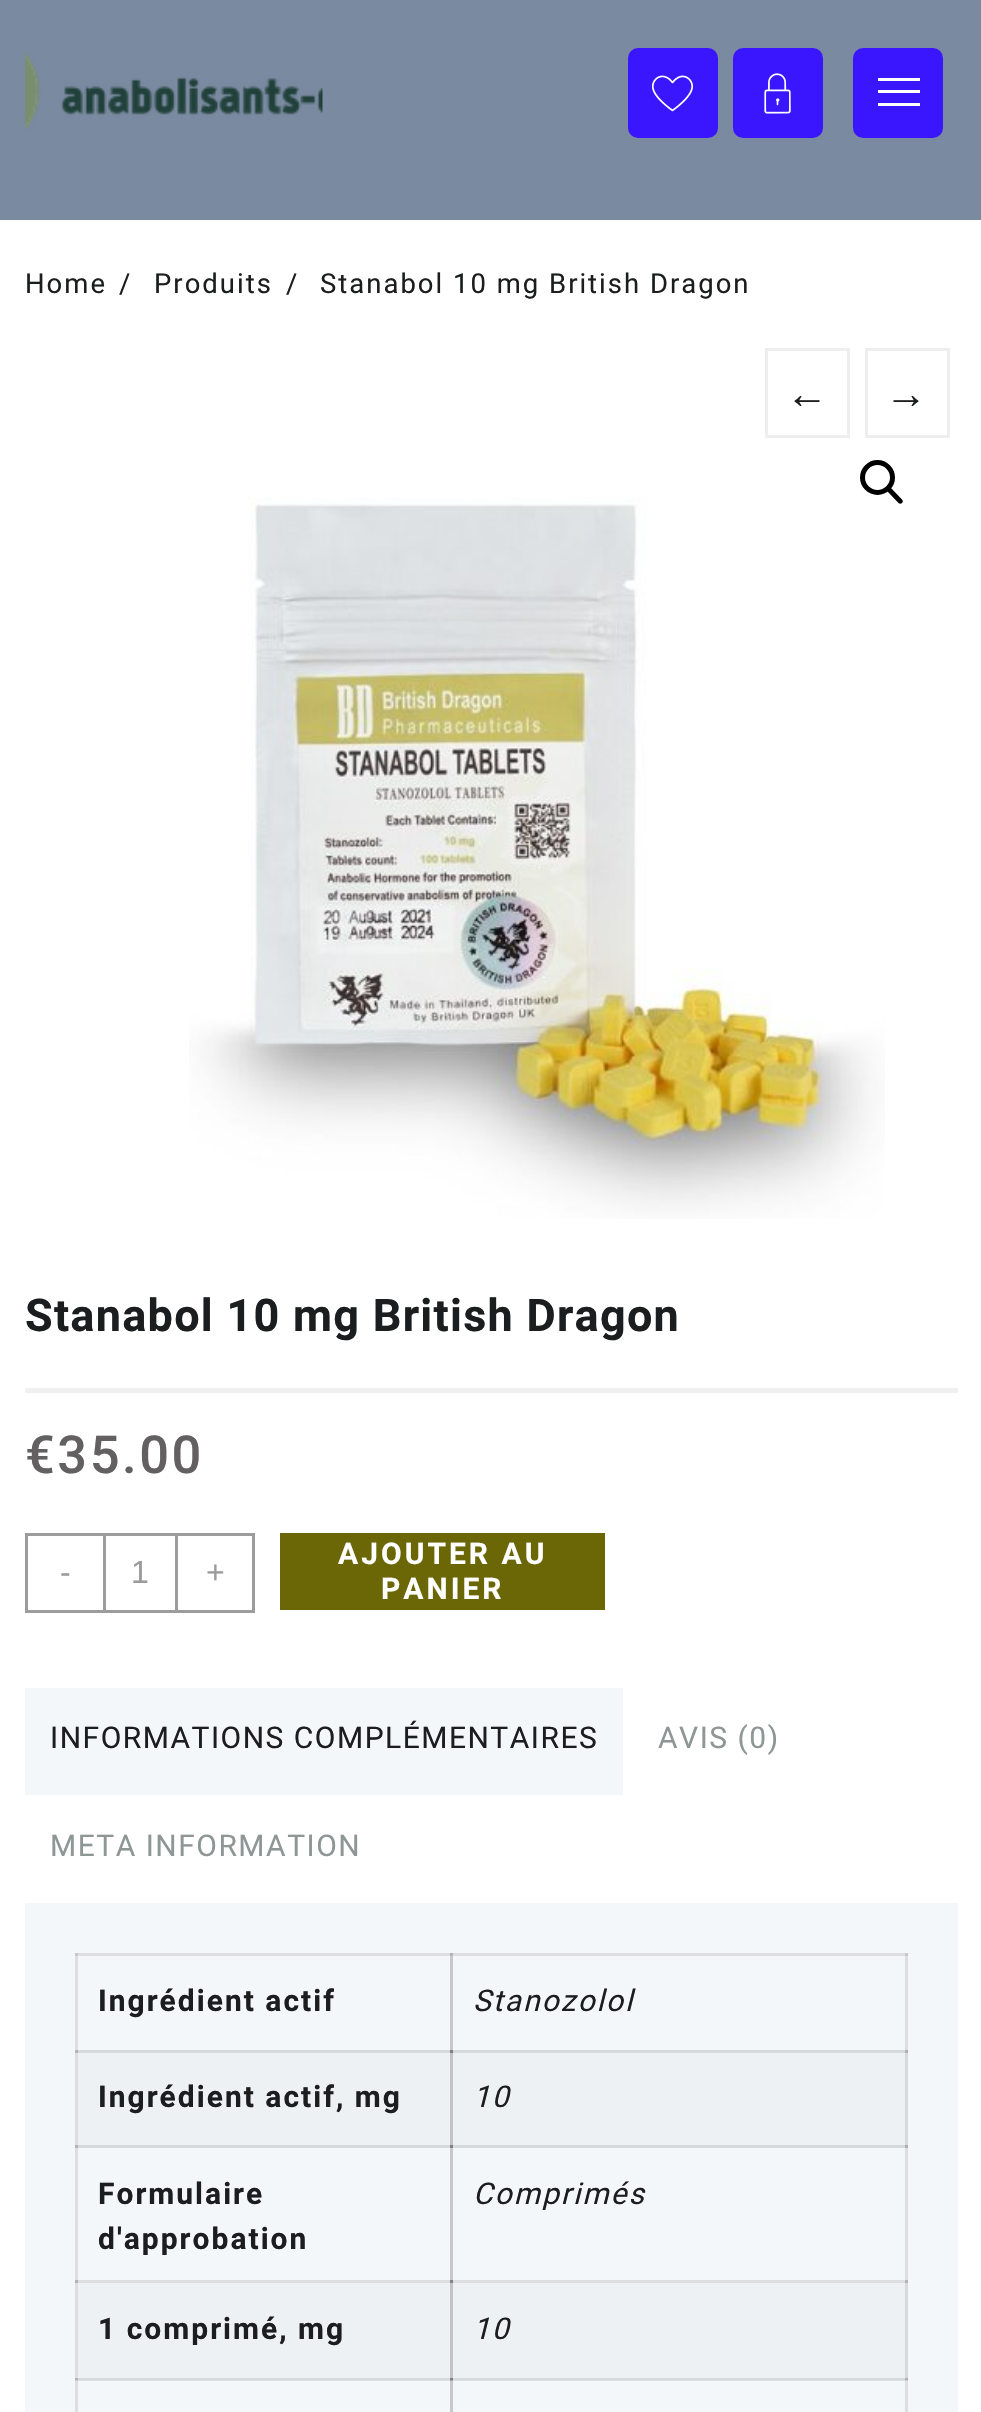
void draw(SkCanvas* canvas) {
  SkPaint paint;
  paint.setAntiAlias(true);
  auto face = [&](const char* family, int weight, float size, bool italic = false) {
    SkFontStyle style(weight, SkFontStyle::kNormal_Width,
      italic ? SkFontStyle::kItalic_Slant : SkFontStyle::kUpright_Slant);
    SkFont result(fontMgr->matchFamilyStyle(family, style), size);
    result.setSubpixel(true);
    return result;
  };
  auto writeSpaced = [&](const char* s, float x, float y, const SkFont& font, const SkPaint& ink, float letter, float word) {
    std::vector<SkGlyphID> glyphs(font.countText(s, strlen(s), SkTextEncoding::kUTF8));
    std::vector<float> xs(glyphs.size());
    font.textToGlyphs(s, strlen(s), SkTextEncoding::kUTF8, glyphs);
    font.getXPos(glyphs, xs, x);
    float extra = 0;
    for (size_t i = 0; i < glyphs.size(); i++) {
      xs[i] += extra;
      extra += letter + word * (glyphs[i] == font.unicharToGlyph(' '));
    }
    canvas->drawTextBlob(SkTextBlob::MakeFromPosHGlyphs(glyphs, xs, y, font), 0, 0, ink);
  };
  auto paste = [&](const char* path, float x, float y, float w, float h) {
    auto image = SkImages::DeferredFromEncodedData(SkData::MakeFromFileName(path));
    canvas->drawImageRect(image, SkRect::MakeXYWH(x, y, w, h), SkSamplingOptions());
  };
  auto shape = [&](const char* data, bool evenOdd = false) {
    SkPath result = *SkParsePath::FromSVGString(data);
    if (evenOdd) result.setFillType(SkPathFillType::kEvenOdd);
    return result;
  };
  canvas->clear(0xffffffff);
  paint.setColor(0xff7a8aa0);
  canvas->drawRect(SkRect::MakeXYWH(0, 0, 981, 220), paint);
  paste("img/1.png", 25, 52, 298, 79);
  paint.setColor(0xff3a16ff);
  canvas->drawRoundRect(SkRect::MakeXYWH(628, 48, 90, 90), 10, 10, paint);
  paste("img/2.png", 652, 75, 41, 37);
  canvas->drawRoundRect(SkRect::MakeXYWH(733, 48, 90, 90), 10, 10, paint);
  paste("img/3.png", 764, 73, 27, 41);
  canvas->drawRoundRect(SkRect::MakeXYWH(853, 48, 90, 90), 10, 10, paint);
  {
    const struct { float x, y, w, h; SkColor color; } items[] = {
      {878, 78, 42, 3, 0xffffffff},
      {878, 90, 42, 3, 0xffffffff},
      {878, 103, 42, 3, 0xffffffff},
    };
    for (auto [x, y, w, h, color] : items) {
      paint.setColor(color);
      canvas->drawRect(SkRect::MakeXYWH(x, y, w, h), paint);
    }
  }
  paint.setStroke(true);
  paint.setStrokeWidth(3);
  paint.setColor(0xffeeeeee);
  canvas->drawRect(SkRect::MakeXYWH(766.5f, 349.5f, 82, 87), paint);
  canvas->drawRect(SkRect::MakeXYWH(866.5f, 349.5f, 82, 87), paint);
  paint.setStroke(false);
  paint.setColor(0xfff0f0f0);
  canvas->drawRect(SkRect::MakeXYWH(25, 1388, 933, 5), paint);
  paint.setStroke(true);
  paint.setColor(0xff9c9c9c);
  canvas->drawRect(SkRect::MakeXYWH(26.5f, 1534.5f, 227, 77), paint);
  paint.setStroke(false);
  {
    const struct { float x, y, w, h; SkColor color; } items[] = {
      {175, 1535, 3, 75, 0xff9c9c9c},
      {103, 1535, 3, 75, 0xff9c9c9c},
      {280, 1533, 325, 77, 0xff6b6707},
      {25, 1688, 598, 107, 0xfff4f7f9},
      {25, 1903, 933, 509, 0xfff4f7f9},
      {75, 1953, 3, 330, 0xffdcdee0},
      {450, 1953, 3, 100, 0xffc6c8ca},
      {905, 1953, 3, 100, 0xffdcdee0},
      {75, 2050, 3, 3, 0xffb2b4b6},
      {75, 2145, 3, 3, 0xffb2b4b6},
      {75, 2280, 378, 3, 0xffdcdee0},
      {450, 2145, 3, 138, 0xffc6c8ca},
      {450, 2280, 458, 3, 0xffdcdee0},
      {905, 2145, 3, 138, 0xffdcdee0},
      {75, 2280, 3, 100, 0xffdcdee0},
      {75, 2280, 3, 3, 0xffb2b4b6},
      {75, 2380, 833, 1, 0xffdcdee0},
      {450, 2280, 3, 3, 0xff828385},
      {905, 2280, 3, 3, 0xffb2b4b6},
      {450, 2378, 3, 34, 0xffc6c8ca},
      {450, 2380, 3, 1, 0xffa0a2a4},
      {905, 2378, 3, 34, 0xffdcdee0},
      {905, 2380, 3, 1, 0xffc6c8ca},
      {75, 1953, 833, 3, 0xffdcdee0},
      {75, 1953, 3, 3, 0xffc6c8ca},
      {450, 1953, 3, 3, 0xffb2b4b6},
      {905, 1953, 3, 3, 0xffc6c8ca},
      {78, 2053, 372, 92, 0xffeef1f3},
      {78, 2050, 830, 3, 0xffd6d9db},
      {78, 2145, 830, 3, 0xffd6d9db},
      {450, 2050, 3, 98, 0xffc1c3c5},
      {450, 2050, 3, 3, 0xff7f8081},
      {450, 2145, 3, 3, 0xff7f8081},
      {453, 2053, 452, 92, 0xffeef1f3},
      {905, 2050, 3, 98, 0xffd6d9db},
      {905, 2050, 3, 3, 0xffaeb0b1},
      {905, 2145, 3, 3, 0xffaeb0b1},
      {78, 2283, 372, 95, 0xffeef1f3},
      {78, 2378, 830, 2, 0xffd6d9db},
      {450, 2283, 3, 97, 0xffc1c3c5},
      {450, 2378, 3, 2, 0xff7f8081},
      {453, 2283, 452, 95, 0xffeef1f3},
      {905, 2283, 3, 97, 0xffd6d9db},
      {905, 2378, 3, 2, 0xffaeb0b1},
      {75, 2378, 3, 34, 0xffdcdee0},
      {75, 2380, 3, 1, 0xffc6c8ca},
      {75, 2378, 3, 2, 0xffb2b4b6},
    };
    for (auto [x, y, w, h, color] : items) {
      paint.setColor(color);
      canvas->drawRect(SkRect::MakeXYWH(x, y, w, h), paint);
    }
  }
  paint.setStroke(true);
  paint.setStrokeWidth(5);
  paint.setColor(0xff000000);
  canvas->drawCircle(877.5f, 477.5f, 15, paint);
  paint.setStroke(false);
  canvas->drawPath(shape("M888 488.5C889 487.5 890.5 487.5 891.5 488.5L902 499.5C903 500.5 903 502 902 503C901 504 899.5 504 898.5 503L888 492C887 491 887 489.5 888 488.5Z"), paint);
  paste("img/4.png", 189, 497, 696, 722);
  auto f0 = face("Roboto", 400, 27.5f);
  paint.setColor(0xff1c1d1e);
  {
    const struct { const char* s; float x, y; } items[] = {
      {"Home", 25, 293},
      {"/", 119, 293},
      {"Produits", 154, 293},
      {"/", 286, 293},
      {"Stanabol 10 mg British Dragon", 320, 293},
    };
    for (auto [s, x, y] : items) {
      writeSpaced(s, x, y, f0, paint, 2, 0);
    }
  }
  auto f1 = face("Liberation Sans", 400, 42);
  writeSpaced("←", 786, 408, f1, paint, 2, 0);
  writeSpaced("→", 885, 408, f1, paint, 2, 0);
  auto f2 = face("Roboto", 700, 45);
  writeSpaced("Stanabol 10 mg British Dragon", 25, 1331, f2, paint, 1.25f, 0);
  auto f3 = face("Roboto", 500, 52.5f);
  paint.setColor(0xff626060);
  writeSpaced("€35.00", 25, 1473, f3, paint, 2.5f, 0);
  auto f4 = face("Liberation Sans", 400, 32);
  paint.setColor(0xff9c9c9c);
  {
    const struct { const char* s; float x, y; } items[] = {
      {"-", 60, 1583},
      {"1", 131, 1583},
      {"+", 206, 1583},
    };
    for (auto [s, x, y] : items) {
      canvas->drawString(s, x, y, f4, paint);
    }
  }
  auto f5 = face("Roboto", 700, 30);
  paint.setColor(0xffffffff);
  writeSpaced("AJOUTER AU", 338, 1564, f5, paint, 3, 0);
  writeSpaced("PANIER", 381, 1599, f5, paint, 3, 0);
  auto f6 = face("Roboto", 400, 30);
  paint.setColor(0xff1c1d1e);
  writeSpaced("INFORMATIONS COMPLÉMENTAIRES", 50, 1748, f6, paint, 1.5f, 0);
  paint.setColor(0xff8f9696);
  writeSpaced("AVIS (0)", 658, 1748, f6, paint, 1.5f, 0);
  writeSpaced("META INFORMATION", 50, 1856, f6, paint, 1.5f, 0);
  paint.setColor(0xff1c1d1e);
  writeSpaced("Ingrédient actif", 98, 2011, f5, paint, 2, 0);
  auto f7 = face("Roboto", 400, 30, true);
  writeSpaced("Stanozolol", 473, 2011, f7, paint, 2, 0);
  writeSpaced("Ingrédient actif, mg", 98, 2107, f5, paint, 2, 0);
  writeSpaced("10", 473, 2107, f7, paint, 2, 0);
  writeSpaced("Formulaire", 98, 2204, f5, paint, 2, 0);
  writeSpaced("d'approbation", 98, 2249, f5, paint, 2, 0);
  writeSpaced("Comprimés", 473, 2204, f7, paint, 2, 0);
  writeSpaced("1 comprimé, mg", 98, 2339, f5, paint, 2, 0);
  writeSpaced("10", 473, 2339, f7, paint, 2, 0);
}
